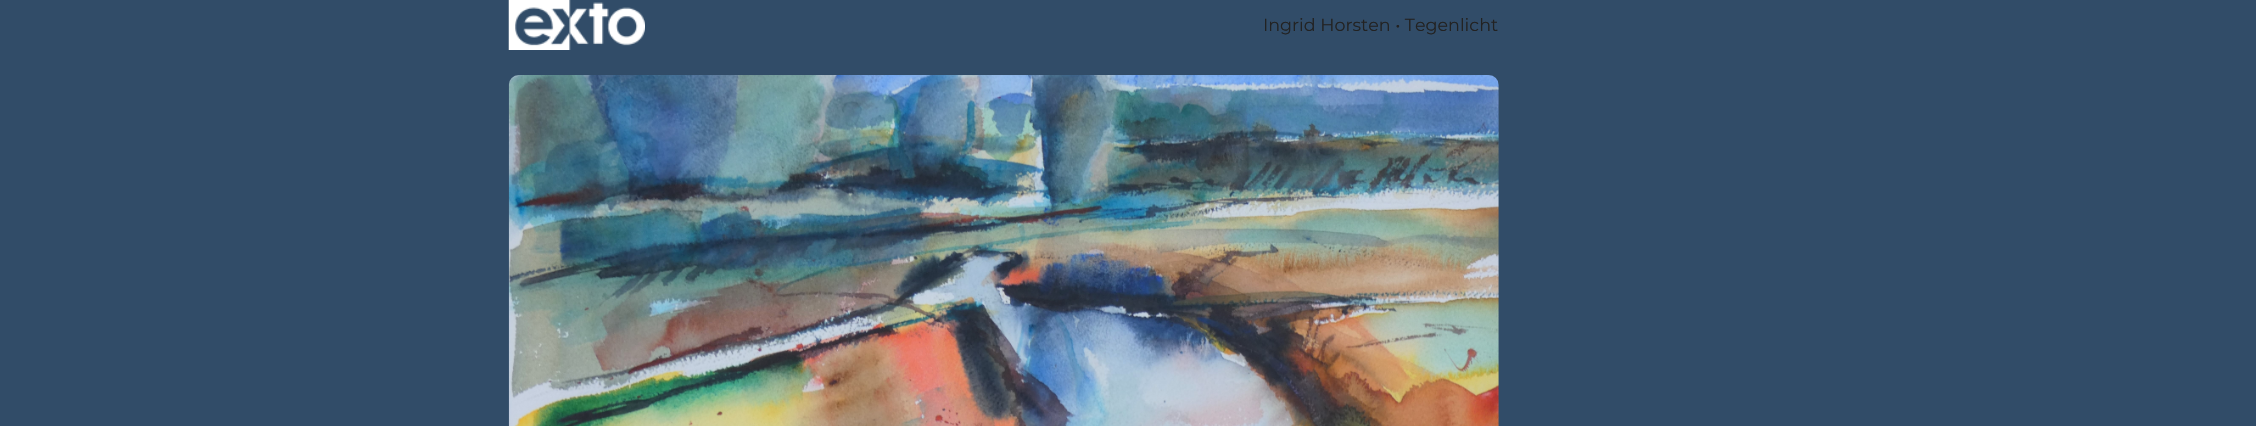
void draw(SkCanvas* canvas) {
  SkPaint paint;
  paint.setAntiAlias(true);
  auto face = [&](const char* family, int weight, float size, bool italic = false) {
    SkFontStyle style(weight, SkFontStyle::kNormal_Width,
      italic ? SkFontStyle::kItalic_Slant : SkFontStyle::kUpright_Slant);
    SkFont result(fontMgr->matchFamilyStyle(family, style), size);
    result.setSubpixel(true);
    return result;
  };
  auto paste = [&](const char* path, float x, float y, float w, float h) {
    auto image = SkImages::DeferredFromEncodedData(SkData::MakeFromFileName(path));
    canvas->drawImageRect(image, SkRect::MakeXYWH(x, y, w, h), SkSamplingOptions());
  };
  canvas->clear(0xff314c68);
  paste("img/1.png", 508, 0, 137, 50);
  paste("img/2.png", 508, 75, 991, 351);
  auto f0 = face("Montserrat", 100, 17.5f);
  paint.setColor(0xff222222);
  canvas->drawString("Ingrid Horsten • Tegenlicht", 1263, 31, f0, paint);
}
